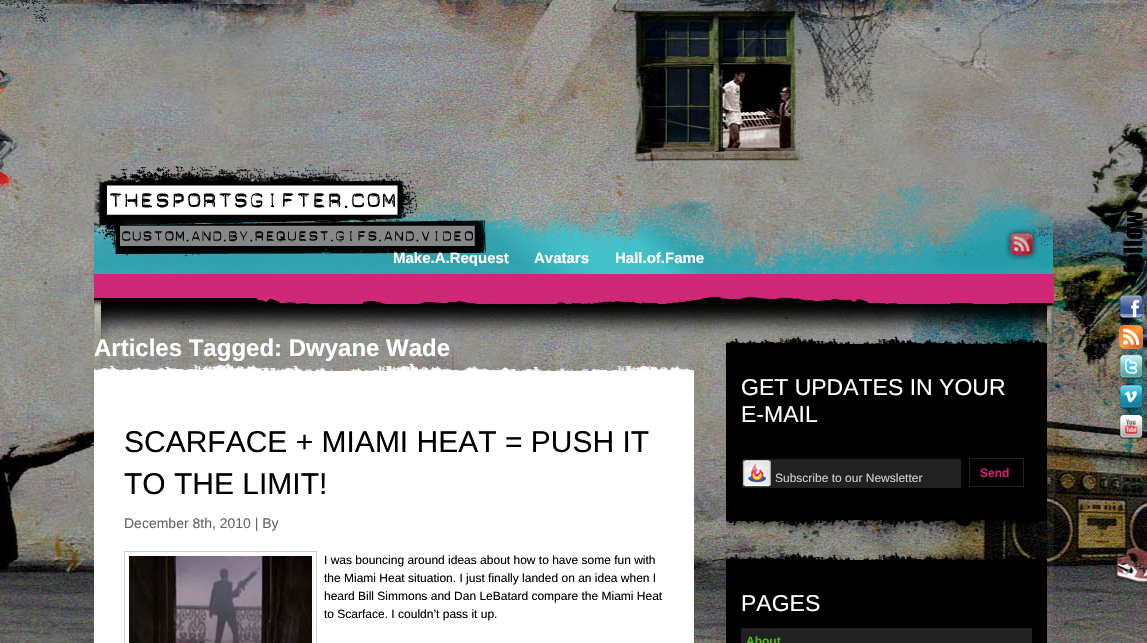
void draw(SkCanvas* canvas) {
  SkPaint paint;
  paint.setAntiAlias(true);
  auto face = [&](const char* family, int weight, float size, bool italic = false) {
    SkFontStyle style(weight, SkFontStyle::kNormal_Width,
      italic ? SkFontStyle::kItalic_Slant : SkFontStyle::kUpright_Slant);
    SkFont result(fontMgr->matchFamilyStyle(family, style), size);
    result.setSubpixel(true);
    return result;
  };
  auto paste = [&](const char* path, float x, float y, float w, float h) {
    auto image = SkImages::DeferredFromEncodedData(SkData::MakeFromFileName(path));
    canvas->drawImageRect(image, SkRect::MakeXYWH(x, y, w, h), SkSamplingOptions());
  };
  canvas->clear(0xffffffff);
  paste("img/1.png", 0, 0, 1147, 643);
  paste("img/2.png", 94, 166, 960, 477);
  paste("img/3.png", 1004, 227, 35, 34);
  paste("img/4.png", 94, 363, 600, 8);
  paint.setColor(0xffffffff);
  canvas->drawRect(SkRect::MakeXYWH(94, 371, 600, 272), paint);
  paint.setStroke(true);
  paint.setStrokeWidth(1);
  paint.setColor(0xffcccccc);
  canvas->drawRect(SkRect::MakeXYWH(124.5f, 551.5f, 192, 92), paint);
  paste("img/5.png", 129, 556, 183, 87);
  paste("img/6.png", 726, 336, 321, 8);
  paint.setStroke(false);
  paint.setColor(0xff000000);
  canvas->drawRect(SkRect::MakeXYWH(726, 344, 321, 153), paint);
  paint.setColor(0xff212121);
  canvas->drawRect(SkRect::MakeXYWH(742, 459, 219, 29), paint);
  paste("img/7.png", 743, 460, 28, 27);
  paint.setStroke(true);
  canvas->drawRect(SkRect::MakeXYWH(969.5f, 458.5f, 54, 28), paint);
  paste("img/8.png", 726, 497, 321, 55);
  paste("img/9.png", 726, 552, 321, 8);
  paint.setStroke(false);
  paint.setColor(0xff000000);
  canvas->drawRect(SkRect::MakeXYWH(726, 560, 321, 83), paint);
  paint.setColor(0xff212121);
  canvas->drawRect(SkRect::MakeXYWH(741, 628, 291, 15), paint);
  paste("img/10.png", 1123, 211, 20, 78);
  paste("img/11.png", 1119, 295, 24, 24);
  paste("img/12.png", 1119, 325, 24, 24);
  paste("img/13.png", 1119, 355, 24, 24);
  paste("img/14.png", 1119, 385, 24, 24);
  paste("img/15.png", 1119, 415, 24, 24);
  auto f0 = face("Liberation Sans", 700, 15);
  paint.setColor(0xffffffff);
  {
    const struct { const char* s; float x, y; } items[] = {
      {"Make.A.Request", 393, 263},
      {"Avatars", 534, 263},
      {"Hall.of.Fame", 615, 263},
    };
    for (auto [s, x, y] : items) {
      canvas->drawString(s, x, y, f0, paint);
    }
  }
  auto f1 = face("Liberation Sans", 700, 24);
  canvas->drawString("Articles Tagged: Dwyane Wade", 94, 356, f1, paint);
  auto f2 = face("Liberation Sans", 400, 30);
  paint.setColor(0xff000000);
  canvas->drawString("SCARFACE + MIAMI HEAT = PUSH IT", 124, 452, f2, paint);
  canvas->drawString("TO THE LIMIT!", 124, 494, f2, paint);
  auto f3 = face("Liberation Sans", 400, 14);
  paint.setColor(0xff666666);
  canvas->drawString("December 8th, 2010 | By", 124, 528, f3, paint);
  auto f4 = face("Liberation Sans", 400, 12);
  paint.setColor(0xff000000);
  {
    const struct { const char* s; float x, y; } items[] = {
      {"I was bouncing around ideas about how to have some fun with", 324, 564},
      {"the Miami Heat situation. I just finally landed on an idea when I", 324, 582},
      {"heard Bill Simmons and Dan LeBatard compare the Miami Heat", 324, 600},
      {"to Scarface. I couldn’t pass it up.", 324, 618},
    };
    for (auto [s, x, y] : items) {
      canvas->drawString(s, x, y, f4, paint);
    }
  }
  auto f5 = face("Liberation Sans", 400, 23);
  paint.setColor(0xffffffff);
  canvas->drawString("GET UPDATES IN YOUR", 741, 395, f5, paint);
  canvas->drawString("E-MAIL", 741, 422, f5, paint);
  paint.setColor(0xffcccccc);
  canvas->drawString("Subscribe to our Newsletter", 775, 482, f4, paint);
  auto f6 = face("Liberation Sans", 700, 12);
  paint.setColor(0xffce2778);
  canvas->drawString("Send", 980, 477, f6, paint);
  paint.setColor(0xffffffff);
  canvas->drawString("PAGES", 741, 611, f5, paint);
  paint.setColor(0xff55b71b);
  canvas->drawString("About", 746, 645, f6, paint);
}
